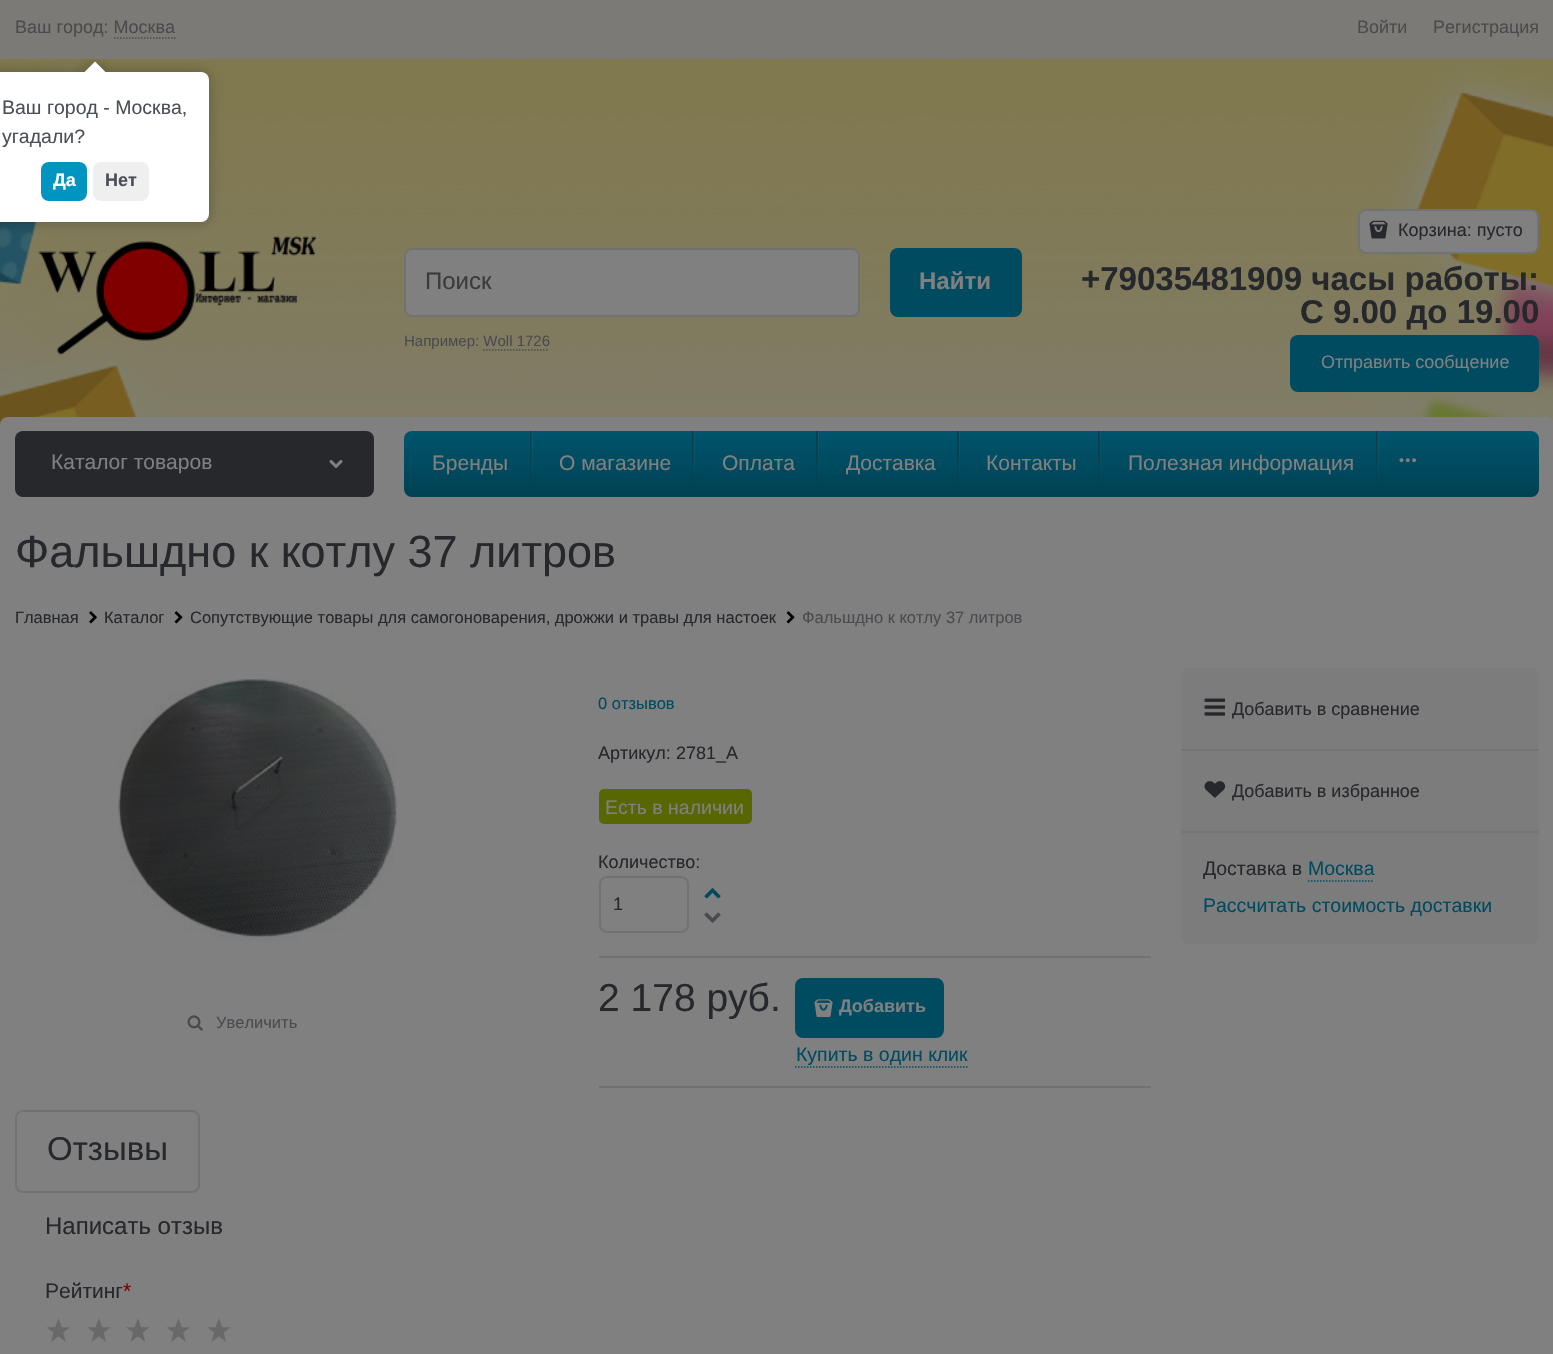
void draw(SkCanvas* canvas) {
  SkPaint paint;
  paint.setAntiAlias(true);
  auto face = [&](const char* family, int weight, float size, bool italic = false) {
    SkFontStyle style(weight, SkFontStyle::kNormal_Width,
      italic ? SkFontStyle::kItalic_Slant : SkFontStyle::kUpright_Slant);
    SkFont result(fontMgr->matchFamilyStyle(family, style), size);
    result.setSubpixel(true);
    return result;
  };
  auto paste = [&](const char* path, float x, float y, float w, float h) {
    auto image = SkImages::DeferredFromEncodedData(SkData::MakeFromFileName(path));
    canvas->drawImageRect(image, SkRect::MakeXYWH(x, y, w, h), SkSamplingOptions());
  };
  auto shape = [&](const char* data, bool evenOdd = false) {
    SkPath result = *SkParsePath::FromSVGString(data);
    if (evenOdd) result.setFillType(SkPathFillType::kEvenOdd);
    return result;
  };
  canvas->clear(0xff808080);
  paste("img/1.png", 0, 0, 1553, 425);
  paint.setColor(0xe67a7a7a);
  canvas->drawRect(SkRect::MakeXYWH(0, 0, 1553, 59), paint);
  paint.setStroke(true);
  paint.setStrokeWidth(1.5f);
  paint.setColor(0xff4a4b4e);
  paint.setPathEffect(SkDashPathEffect::Make({{1.5f, 1.5f}}, 0));
  canvas->drawPath(shape("M114 38H175.5"), paint);
  paint.setPathEffect(nullptr);
  paste("img/2.png", 37, 236, 280, 119);
  paint.setStroke(false);
  paint.setColor(0xff808080);
  canvas->drawRoundRect(SkRect::MakeXYWH(405, 249, 454, 67), 7, 7, paint);
  paint.setStroke(true);
  paint.setStrokeWidth(2);
  paint.setColor(0xff717272);
  canvas->drawRoundRect(SkRect::MakeXYWH(405, 249, 454, 67), 7, 7, paint);
  paint.setStrokeWidth(1.5f);
  paint.setColor(0xff4a4b4e);
  paint.setPathEffect(SkDashPathEffect::Make({{1.5f, 1.5f}}, 0));
  canvas->drawPath(shape("M483 350H549"), paint);
  paint.setPathEffect(nullptr);
  paint.setStroke(false);
  paint.setColor(0xff004b60);
  canvas->drawRoundRect(SkRect::MakeXYWH(890, 248, 132, 69), 8, 8, paint);
  paint.setColor(0xff808080);
  canvas->drawRoundRect(SkRect::MakeXYWH(1359, 210, 179, 43), 7, 7, paint);
  paint.setStroke(true);
  paint.setStrokeWidth(2);
  paint.setColor(0xff717272);
  canvas->drawRoundRect(SkRect::MakeXYWH(1359, 210, 179, 43), 7, 7, paint);
  paste("img/3.png", 1369, 220, 19, 19);
  paint.setStroke(false);
  paint.setColor(0xff004b60);
  canvas->drawRoundRect(SkRect::MakeXYWH(1290, 335, 249, 57), 8, 8, paint);
  paint.setColor(0xff808080);
  canvas->drawRoundRect(SkRect::MakeXYWH(0, 417, 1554, 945), 8, 8, paint);
  paint.setColor(0xff26282c);
  canvas->drawRoundRect(SkRect::MakeXYWH(15, 431, 359, 66), 8, 8, paint);
  paste("img/4.png", 329, 459, 14, 10);
  {
    const SkColor colors[] = {0xff00556d, 0xff004b60, 0xff004153};
    const float stops[] = {0, 0.5f, 1};
    const SkPoint ends[] = {{971, 430}, {971, 497}};
    paint.setShader(SkGradientShader::MakeLinear(ends, colors, stops, 3, SkTileMode::kClamp));
    paint.setAlpha(255);
  }
  canvas->drawRoundRect(SkRect::MakeXYWH(404, 431, 1135, 66), 8, 8, paint);
  {
    const SkColor colors[] = {0x24808080, 0x05808080, 0x00808080};
    const float stops[] = {0, 0.72f, 1};
    const SkPoint ends[] = {{532, 431}, {532, 497}};
    paint.setShader(SkGradientShader::MakeLinear(ends, colors, stops, 3, SkTileMode::kClamp));
    paint.setAlpha(255);
  }
  canvas->drawRect(SkRect::MakeXYWH(531, 431, 2, 47), paint);
  {
    const SkColor colors[] = {0x631d1d1d, 0x541d1d1d, 0x1f1d1d1d, 0x031d1d1d, 0x03808080, 0x00808080};
    const float stops[] = {0, 0.17f, 0.61f, 0.96f, 0.98f, 1};
    const SkPoint ends[] = {{530, 431}, {530, 497}};
    paint.setShader(SkGradientShader::MakeLinear(ends, colors, stops, 6, SkTileMode::kClamp));
    paint.setAlpha(255);
  }
  canvas->drawRect(SkRect::MakeXYWH(530, 431, 2, 57), paint);
  {
    const SkColor colors[] = {0x24808080, 0x05808080, 0x00808080};
    const float stops[] = {0, 0.72f, 1};
    const SkPoint ends[] = {{694, 431}, {694, 497}};
    paint.setShader(SkGradientShader::MakeLinear(ends, colors, stops, 3, SkTileMode::kClamp));
    paint.setAlpha(255);
  }
  canvas->drawRect(SkRect::MakeXYWH(693, 431, 2, 47), paint);
  {
    const SkColor colors[] = {0x631d1d1d, 0x541d1d1d, 0x1f1d1d1d, 0x031d1d1d, 0x03808080, 0x00808080};
    const float stops[] = {0, 0.17f, 0.61f, 0.96f, 0.98f, 1};
    const SkPoint ends[] = {{692, 431}, {692, 497}};
    paint.setShader(SkGradientShader::MakeLinear(ends, colors, stops, 6, SkTileMode::kClamp));
    paint.setAlpha(255);
  }
  canvas->drawRect(SkRect::MakeXYWH(692, 431, 2, 57), paint);
  {
    const SkColor colors[] = {0x24808080, 0x05808080, 0x00808080};
    const float stops[] = {0, 0.72f, 1};
    const SkPoint ends[] = {{818, 431}, {818, 497}};
    paint.setShader(SkGradientShader::MakeLinear(ends, colors, stops, 3, SkTileMode::kClamp));
    paint.setAlpha(255);
  }
  canvas->drawRect(SkRect::MakeXYWH(818, 431, 1, 47), paint);
  {
    const SkColor colors[] = {0x631d1d1d, 0x541d1d1d, 0x1f1d1d1d, 0x031d1d1d, 0x03808080, 0x00808080};
    const float stops[] = {0, 0.17f, 0.61f, 0.96f, 0.98f, 1};
    const SkPoint ends[] = {{817, 431}, {817, 497}};
    paint.setShader(SkGradientShader::MakeLinear(ends, colors, stops, 6, SkTileMode::kClamp));
    paint.setAlpha(255);
  }
  canvas->drawRect(SkRect::MakeXYWH(816, 431, 2, 57), paint);
  {
    const SkColor colors[] = {0x24808080, 0x05808080, 0x00808080};
    const float stops[] = {0, 0.72f, 1};
    const SkPoint ends[] = {{959, 431}, {959, 497}};
    paint.setShader(SkGradientShader::MakeLinear(ends, colors, stops, 3, SkTileMode::kClamp));
    paint.setAlpha(255);
  }
  canvas->drawRect(SkRect::MakeXYWH(959, 431, 1, 47), paint);
  {
    const SkColor colors[] = {0x631d1d1d, 0x541d1d1d, 0x1f1d1d1d, 0x031d1d1d, 0x03808080, 0x00808080};
    const float stops[] = {0, 0.17f, 0.61f, 0.96f, 0.98f, 1};
    const SkPoint ends[] = {{958, 431}, {958, 497}};
    paint.setShader(SkGradientShader::MakeLinear(ends, colors, stops, 6, SkTileMode::kClamp));
    paint.setAlpha(255);
  }
  canvas->drawRect(SkRect::MakeXYWH(957, 431, 2, 57), paint);
  {
    const SkColor colors[] = {0x24808080, 0x05808080, 0x00808080};
    const float stops[] = {0, 0.72f, 1};
    const SkPoint ends[] = {{1100, 431}, {1100, 497}};
    paint.setShader(SkGradientShader::MakeLinear(ends, colors, stops, 3, SkTileMode::kClamp));
    paint.setAlpha(255);
  }
  canvas->drawRect(SkRect::MakeXYWH(1100, 431, 1, 47), paint);
  {
    const SkColor colors[] = {0x631d1d1d, 0x541d1d1d, 0x1f1d1d1d, 0x031d1d1d, 0x03808080, 0x00808080};
    const float stops[] = {0, 0.17f, 0.61f, 0.96f, 0.98f, 1};
    const SkPoint ends[] = {{1099, 431}, {1099, 497}};
    paint.setShader(SkGradientShader::MakeLinear(ends, colors, stops, 6, SkTileMode::kClamp));
    paint.setAlpha(255);
  }
  canvas->drawRect(SkRect::MakeXYWH(1098, 431, 2, 57), paint);
  {
    const SkColor colors[] = {0x24808080, 0x05808080, 0x00808080};
    const float stops[] = {0, 0.72f, 1};
    const SkPoint ends[] = {{1378, 431}, {1378, 497}};
    paint.setShader(SkGradientShader::MakeLinear(ends, colors, stops, 3, SkTileMode::kClamp));
    paint.setAlpha(255);
  }
  canvas->drawRect(SkRect::MakeXYWH(1377, 431, 2, 47), paint);
  {
    const SkColor colors[] = {0x631d1d1d, 0x541d1d1d, 0x1f1d1d1d, 0x031d1d1d, 0x03808080, 0x00808080};
    const float stops[] = {0, 0.17f, 0.61f, 0.96f, 0.98f, 1};
    const SkPoint ends[] = {{1376, 431}, {1376, 497}};
    paint.setShader(SkGradientShader::MakeLinear(ends, colors, stops, 6, SkTileMode::kClamp));
    paint.setAlpha(255);
  }
  canvas->drawRect(SkRect::MakeXYWH(1376, 431, 2, 57), paint);
  paste("img/5.png", 1399, 458, 17, 5);
  paste("img/6.png", 89, 611, 8, 13);
  paste("img/7.png", 174, 611, 9, 13);
  paste("img/7.png", 786, 611, 9, 13);
  paste("img/8.png", 118, 679, 279, 263);
  paste("img/9.png", 187, 1015, 16, 16);
  paint.setShader(nullptr);
  paint.setColor(0xff596702);
  canvas->drawRoundRect(SkRect::MakeXYWH(599, 789, 153, 35), 5, 5, paint);
  paint.setStroke(true);
  paint.setColor(0xff717272);
  canvas->drawRoundRect(SkRect::MakeXYWH(600, 877, 88, 55), 7, 7, paint);
  paste("img/10.png", 704, 888, 17, 11);
  paste("img/11.png", 704, 912, 17, 11);
  paint.setStroke(false);
  canvas->drawRect(SkRect::MakeXYWH(599, 956, 552, 2), paint);
  canvas->drawRect(SkRect::MakeXYWH(599, 1086, 552, 2), paint);
  paint.setColor(0xff004b60);
  canvas->drawRoundRect(SkRect::MakeXYWH(795, 978, 149, 60), 8, 8, paint);
  paste("img/12.png", 814, 999, 19, 18);
  paint.setStroke(true);
  paint.setStrokeWidth(1.5f);
  paint.setPathEffect(SkDashPathEffect::Make({{1.5f, 1.5f}}, 0));
  canvas->drawPath(shape("M795 1067H967.5"), paint);
  paint.setPathEffect(nullptr);
  paint.setStrokeWidth(2);
  paint.setColor(0xff717272);
  canvas->drawRoundRect(SkRect::MakeXYWH(16, 1111, 183, 81), 7, 7, paint);
  paste("img/13.png", 47, 1318, 23, 24);
  paste("img/14.png", 87, 1318, 24, 24);
  paste("img/14.png", 126, 1318, 24, 24);
  paste("img/13.png", 167, 1318, 23, 24);
  paste("img/14.png", 207, 1318, 24, 24);
  paint.setStroke(false);
  paint.setColor(0xff7c7c7c);
  canvas->drawRoundRect(SkRect::MakeXYWH(1181, 668, 358, 276), 8, 8, paint);
  paint.setColor(0xff757575);
  canvas->drawRect(SkRect::MakeXYWH(1181, 749, 358, 2), paint);
  paste("img/15.png", 1204, 698, 22, 18);
  canvas->drawRect(SkRect::MakeXYWH(1181, 831, 358, 2), paint);
  paste("img/16.png", 1204, 781, 22, 17);
  paint.setStroke(true);
  paint.setStrokeWidth(1.5f);
  paint.setColor(0xff004b60);
  paint.setPathEffect(SkDashPathEffect::Make({{1.5f, 1.5f}}, 0));
  canvas->drawPath(shape("M1308 881H1374"), paint);
  paint.setPathEffect(nullptr);
  paint.setStroke(false);
  paint.setColor(0x40000000);
  paint.setMaskFilter(SkMaskFilter::MakeBlur(kNormal_SkBlurStyle, 7));
  canvas->drawRoundRect(SkRect::MakeXYWH(-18, 72, 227, 150), 8, 8, paint);
  paint.setMaskFilter(nullptr);
  paint.setColor(0xffffffff);
  canvas->drawRoundRect(SkRect::MakeXYWH(-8, 72, 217, 150), 8, 8, paint);
  canvas->save();
  canvas->clipRect(SkRect::MakeXYWH(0, 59, 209, 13));
  paint.setColor(0x40000000);
  paint.setMaskFilter(SkMaskFilter::MakeBlur(kNormal_SkBlurStyle, 7));
  canvas->drawRect(SkRect::MakeXYWH(87, 65, 15, 15), paint);
  paint.setMaskFilter(nullptr);
  canvas->restore();
  canvas->save();
  canvas->clipRect(SkRect::MakeXYWH(0, 59, 209, 13));
  paint.setColor(0xffffffff);
  canvas->drawPath(shape("M95 61.5L105.5 72L95 82.5L84.5 72Z"), paint);
  canvas->restore();
  paint.setColor(0xff0095c0);
  canvas->drawRoundRect(SkRect::MakeXYWH(41, 162, 46, 39), 8, 8, paint);
  paint.setColor(0xffefefef);
  canvas->drawRoundRect(SkRect::MakeXYWH(93, 162, 56, 39), 8, 8, paint);
  auto f0 = face("Liberation Sans", 400, 18);
  paint.setColor(0xff4a4b4e);
  {
    const struct { const char* s; float x, y; } items[] = {
      {"Ваш город: Москва", 15, 33},
      {"Войти", 1357, 33},
      {"Регистрация", 1433, 33},
    };
    for (auto [s, x, y] : items) {
      canvas->drawString(s, x, y, f0, paint);
    }
  }
  auto f1 = face("Liberation Sans", 400, 24);
  paint.setColor(0xff3b3b3b);
  canvas->drawString("Поиск", 425, 289, f1, paint);
  auto f2 = face("Liberation Sans", 400, 15);
  paint.setColor(0xff4a4b4e);
  canvas->drawString("Например: Woll 1726", 404, 346, f2, paint);
  auto f3 = face("Liberation Sans", 700, 24);
  paint.setColor(0xff808080);
  canvas->drawString("Найти", 919, 289, f3, paint);
  paint.setColor(0xff26282c);
  canvas->drawString("Корзина: пусто", 1398, 236, f0, paint);
  auto f4 = face("Liberation Sans", 700, 33);
  canvas->drawString("+79035481909 часы работы:", 1081, 290, f4, paint);
  canvas->drawString("С 9.00 до 19.00", 1300, 323, f4, paint);
  paint.setColor(0xff808080);
  canvas->drawString("Отправить сообщение", 1321, 368, f0, paint);
  auto f5 = face("Liberation Sans", 400, 21);
  {
    const struct { const char* s; float x, y; } items[] = {
      {"Каталог товаров", 51, 469},
      {"Бренды", 432, 470},
      {"О магазине", 559, 470},
      {"Оплата", 722, 470},
      {"Доставка", 846, 470},
      {"Контакты", 986, 470},
      {"Полезная информация", 1128, 470},
    };
    for (auto [s, x, y] : items) {
      canvas->drawString(s, x, y, f5, paint);
    }
  }
  auto f6 = face("Liberation Sans", 400, 45);
  paint.setColor(0xff26282c);
  canvas->drawString("Фальшдно к котлу 37 литров", 15, 567, f6, paint);
  auto f7 = face("Liberation Sans", 400, 16.5f);
  {
    const struct { const char* s; float x, y; } items[] = {
      {"Главная", 15, 623},
      {"Каталог", 104, 623},
      {"Сопутствующие товары для самогоноварения, дрожжи и травы для настоек", 190, 623},
    };
    for (auto [s, x, y] : items) {
      canvas->drawString(s, x, y, f7, paint);
    }
  }
  paint.setColor(0xff4a4b4e);
  canvas->drawString("Фальшдно к котлу 37 литров", 802, 623, f7, paint);
  canvas->drawString("Увеличить", 216, 1028, f7, paint);
  paint.setColor(0xff004b60);
  canvas->drawString("0 отзывов", 598, 709, f7, paint);
  paint.setColor(0xff26282c);
  canvas->drawString("Артикул:", 598, 759, f0, paint);
  canvas->drawString("2781_A", 676, 759, f0, paint);
  auto f8 = face("Liberation Sans", 400, 19.5f);
  paint.setColor(0xff808080);
  canvas->drawString("Есть в наличии", 605, 814, f8, paint);
  paint.setColor(0xff26282c);
  canvas->drawString("Количество:", 598, 868, f0, paint);
  canvas->drawString("1", 613, 910, f0, paint);
  auto f9 = face("Liberation Sans", 400, 39);
  canvas->drawString("2 178 руб.", 598, 1011, f9, paint);
  auto f10 = face("Liberation Sans", 700, 18);
  paint.setColor(0xff808080);
  canvas->drawString("Добавить", 839, 1012, f10, paint);
  paint.setColor(0xff004b60);
  canvas->drawString("Купить в один клик", 796, 1061, f8, paint);
  auto f11 = face("Liberation Sans", 400, 33);
  paint.setColor(0xff26282c);
  canvas->drawString("Отзывы", 47, 1160, f11, paint);
  canvas->drawString("Написать отзыв", 45, 1234, f1, paint);
  canvas->drawString("Рейтинг", 45, 1298, f5, paint);
  paint.setColor(0xff800000);
  canvas->drawString("*", 123, 1298, f5, paint);
  paint.setColor(0xff26282c);
  canvas->drawString("Добавить в сравнение", 1232, 715, f0, paint);
  canvas->drawString("Добавить в избранное", 1232, 797, f0, paint);
  canvas->drawString("Доставка в", 1203, 875, f8, paint);
  paint.setColor(0xff004b60);
  canvas->drawString("Москва", 1308, 875, f8, paint);
  canvas->drawString("Рассчитать стоимость доставки", 1203, 912, f8, paint);
  paint.setColor(0xff4b4f58);
  canvas->drawString("Ваш город - Москва,", 2, 114, f8, paint);
  canvas->drawString("угадали?", 2, 143, f8, paint);
  paint.setColor(0xffffffff);
  canvas->drawString("Да", 53, 186, f10, paint);
  paint.setColor(0xff4b4f58);
  canvas->drawString("Нет", 105, 186, f10, paint);
}
